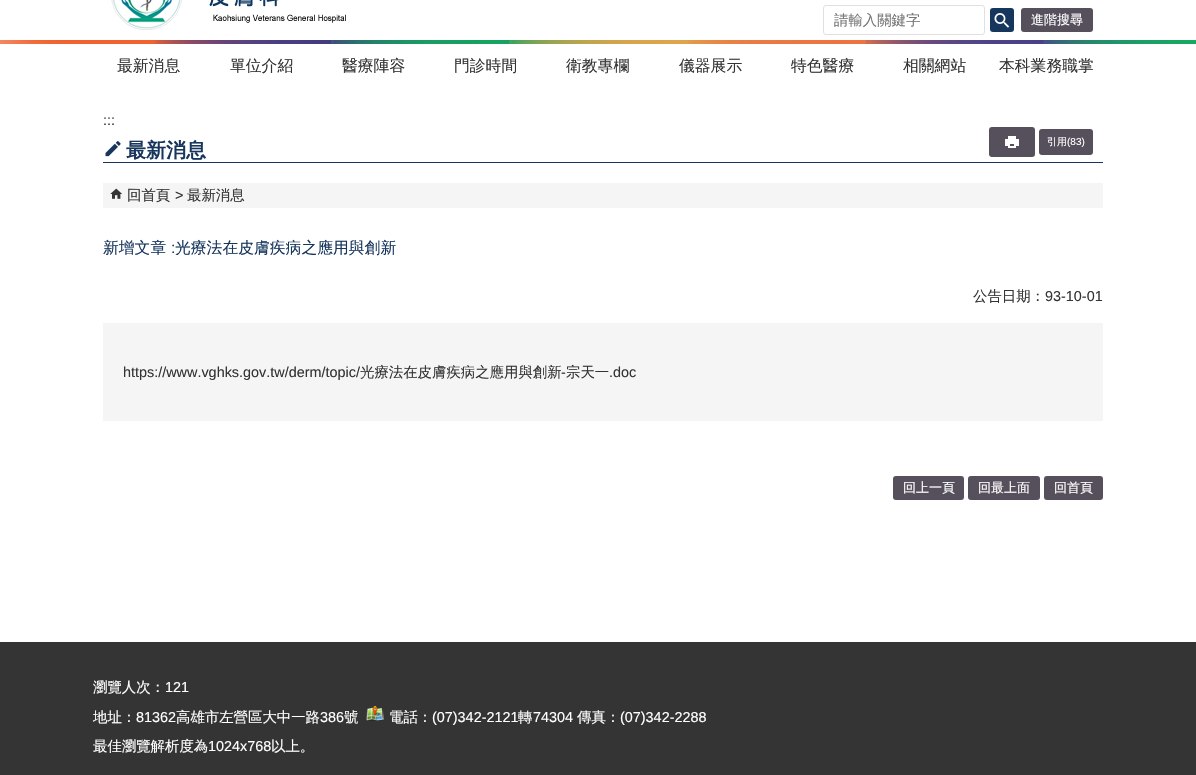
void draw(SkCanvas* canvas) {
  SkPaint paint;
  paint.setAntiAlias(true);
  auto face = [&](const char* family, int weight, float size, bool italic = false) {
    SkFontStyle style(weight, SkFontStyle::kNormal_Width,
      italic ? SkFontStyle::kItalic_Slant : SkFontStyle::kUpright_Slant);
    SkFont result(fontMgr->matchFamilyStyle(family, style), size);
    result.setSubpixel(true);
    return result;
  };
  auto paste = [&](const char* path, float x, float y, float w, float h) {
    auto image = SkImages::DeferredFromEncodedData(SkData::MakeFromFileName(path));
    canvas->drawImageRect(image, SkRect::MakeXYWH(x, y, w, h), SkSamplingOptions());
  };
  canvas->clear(0xffffffff);
  paste("img/1.png", 111, 0, 235, 30);
  paint.setStroke(true);
  paint.setStrokeWidth(1);
  paint.setColor(0xffe0e0e0);
  canvas->drawRoundRect(SkRect::MakeXYWH(823.5f, 5.5f, 161, 29), 2.5f, 2.5f, paint);
  paint.setStroke(false);
  paint.setColor(0xff17365d);
  canvas->drawRoundRect(SkRect::MakeXYWH(990, 8, 24, 24), 3, 3, paint);
  paste("img/2.png", 994, 13, 16, 15);
  paint.setColor(0xff55505c);
  canvas->drawRoundRect(SkRect::MakeXYWH(1021, 8, 72, 24), 3, 3, paint);
  paste("img/3.png", 0, 40, 1196, 4);
  paint.setColor(0xff17365d);
  canvas->drawRect(SkRect::MakeXYWH(103, 162, 1000, 1), paint);
  paste("img/4.png", 105, 141, 16, 16);
  paint.setColor(0xff55505c);
  canvas->drawRoundRect(SkRect::MakeXYWH(989, 127, 46, 30), 3, 3, paint);
  paste("img/5.png", 1005, 136, 14, 12);
  canvas->drawRoundRect(SkRect::MakeXYWH(1039, 129, 54, 26), 3, 3, paint);
  paint.setColor(0xfff5f5f5);
  canvas->drawRect(SkRect::MakeXYWH(103, 183, 1000, 25), paint);
  paste("img/6.png", 110, 188, 12, 11);
  canvas->drawRect(SkRect::MakeXYWH(103, 323, 1000, 98), paint);
  paint.setColor(0xff55505c);
  canvas->drawRoundRect(SkRect::MakeXYWH(893, 476, 71, 24), 3, 3, paint);
  canvas->drawRoundRect(SkRect::MakeXYWH(968, 476, 72, 24), 3, 3, paint);
  canvas->drawRoundRect(SkRect::MakeXYWH(1044, 476, 59, 24), 3, 3, paint);
  paint.setColor(0xff343434);
  canvas->drawRect(SkRect::MakeXYWH(0, 642, 1196, 133), paint);
  paste("img/7.png", 366, 706, 18, 15);
  auto f0 = face("WenQuanYi Zen Hei", 500, 14.4f);
  paint.setColor(0xff757575);
  canvas->drawString("請輸入關鍵字", 834, 25, f0, paint);
  auto f1 = face("WenQuanYi Zen Hei", 500, 13);
  paint.setColor(0xffffffff);
  canvas->drawString("進階搜尋", 1031, 24, f1, paint);
  auto f2 = face("WenQuanYi Zen Hei", 500, 15.8f);
  paint.setColor(0xff343434);
  {
    const struct { const char* s; float x, y; } items[] = {
      {"最新消息", 117, 71},
      {"單位介紹", 230, 71},
      {"醫療陣容", 342, 71},
      {"門診時間", 454, 71},
      {"衛教專欄", 566, 71},
      {"儀器展示", 679, 71},
      {"特色醫療", 791, 71},
      {"相關網站", 903, 71},
      {"本科業務職掌", 999, 71},
    };
    for (auto [s, x, y] : items) {
      canvas->drawString(s, x, y, f2, paint);
    }
  }
  auto f3 = face("Liberation Sans", 400, 14.4f);
  canvas->drawString(":::", 103, 125, f3, paint);
  auto f4 = face("WenQuanYi Zen Hei", 700, 20);
  paint.setColor(0xff17365d);
  canvas->drawString("最新消息", 126, 157, f4, paint);
  auto f5 = face("WenQuanYi Zen Hei", 500, 10);
  paint.setColor(0xffffffff);
  canvas->drawString("引用", 1047, 145, f5, paint);
  auto f6 = face("Liberation Sans", 400, 10);
  canvas->drawString("(83)", 1067, 145, f6, paint);
  paint.setColor(0xff343434);
  canvas->drawString("回首頁", 127, 200, f0, paint);
  canvas->drawString(">", 175, 200, f3, paint);
  canvas->drawString("最新消息", 187, 200, f0, paint);
  paint.setColor(0xff17365d);
  canvas->drawString("新增文章", 103, 253, f2, paint);
  auto f7 = face("Liberation Sans", 400, 15.8f);
  canvas->drawString(":", 171, 253, f7, paint);
  canvas->drawString("光療法在皮膚疾病之應用與創新", 175, 253, f2, paint);
  paint.setColor(0xff343434);
  canvas->drawString("公告日期：", 973, 301, f0, paint);
  canvas->drawString("93-10-01", 1045, 301, f3, paint);
  canvas->drawString("https://www.vghks.gov.tw/derm/topic/", 123, 377, f3, paint);
  canvas->drawString("光療法在皮膚疾病之應用與創新", 360, 377, f0, paint);
  canvas->drawString("-", 561, 377, f3, paint);
  canvas->drawString("宗天一", 566, 377, f0, paint);
  canvas->drawString(".doc", 609, 377, f3, paint);
  paint.setColor(0xffffffff);
  {
    const struct { const char* s; float x, y; } items[] = {
      {"回上一頁", 903, 492},
      {"回最上面", 978, 492},
      {"回首頁", 1054, 492},
    };
    for (auto [s, x, y] : items) {
      canvas->drawString(s, x, y, f1, paint);
    }
  }
  canvas->drawString("瀏覽人次：", 93, 692, f0, paint);
  canvas->drawString("121", 165, 692, f3, paint);
  canvas->drawString("地址：", 93, 722, f0, paint);
  canvas->drawString("81362", 136, 722, f3, paint);
  canvas->drawString("高雄市左營區大中一路", 176, 722, f0, paint);
  canvas->drawString("386", 320, 722, f3, paint);
  canvas->drawString("號", 344, 722, f0, paint);
  canvas->drawString("電話：", 389, 722, f0, paint);
  canvas->drawString("(07)342-2121", 432, 722, f3, paint);
  canvas->drawString("轉", 518, 722, f0, paint);
  canvas->drawString("74304", 533, 722, f3, paint);
  canvas->drawString("傳真：", 577, 722, f0, paint);
  canvas->drawString("(07)342-2288", 620, 722, f3, paint);
  canvas->drawString("最佳瀏覽解析度為", 93, 751, f0, paint);
  canvas->drawString("1024x768", 208, 751, f3, paint);
  canvas->drawString("以上。", 271, 751, f0, paint);
}
